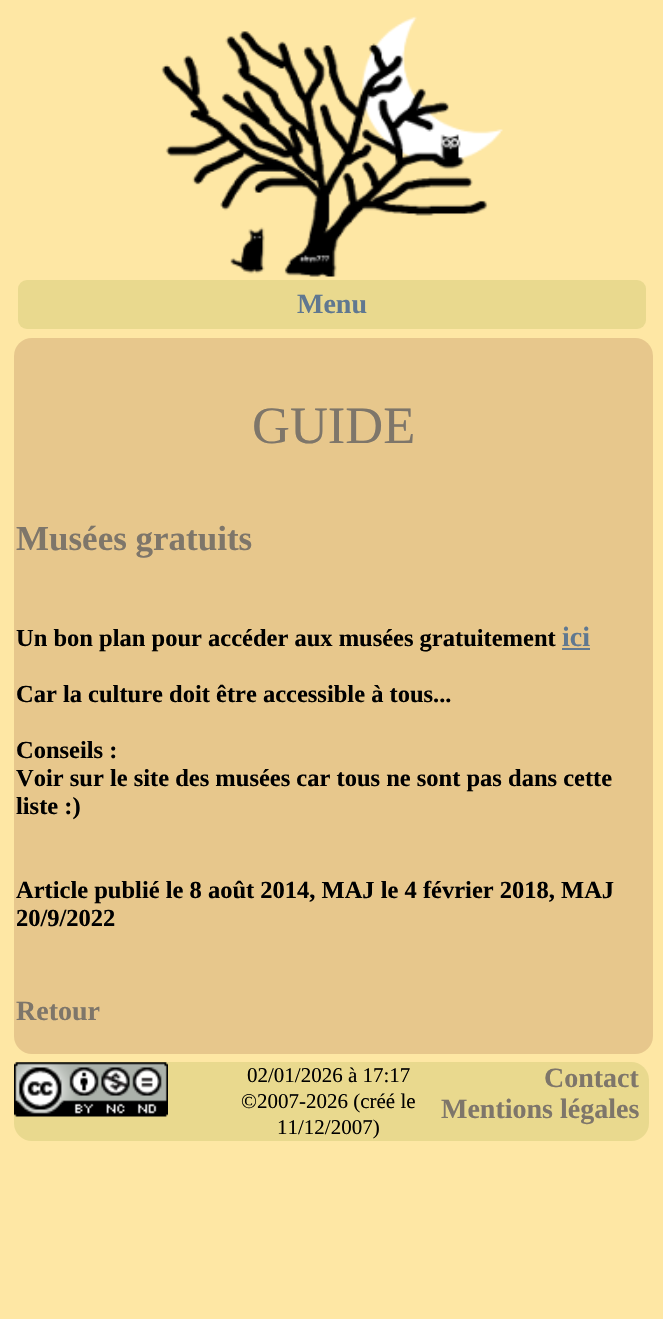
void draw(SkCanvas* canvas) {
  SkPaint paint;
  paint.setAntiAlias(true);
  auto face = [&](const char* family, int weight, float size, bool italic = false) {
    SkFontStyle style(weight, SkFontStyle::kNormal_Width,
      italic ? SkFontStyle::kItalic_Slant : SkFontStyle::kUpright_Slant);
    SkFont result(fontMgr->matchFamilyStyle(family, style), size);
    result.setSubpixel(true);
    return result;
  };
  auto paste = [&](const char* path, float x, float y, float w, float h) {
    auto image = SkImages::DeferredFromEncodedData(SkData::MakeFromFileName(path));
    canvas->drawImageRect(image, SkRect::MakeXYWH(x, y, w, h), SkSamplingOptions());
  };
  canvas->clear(0xfffee7a4);
  paste("img/1.png", 161, 16, 342, 261);
  paint.setColor(0xffe9d98e);
  canvas->drawRoundRect(SkRect::MakeXYWH(18, 280, 628, 49), 9, 9, paint);
  paint.setColor(0xffe7c78c);
  canvas->drawRoundRect(SkRect::MakeXYWH(14, 338, 639, 716), 18, 18, paint);
  paint.setColor(0xff607890);
  canvas->drawRect(SkRect::MakeXYWH(562, 648, 28, 2), paint);
  paint.setColor(0xffe9d98e);
  canvas->drawRoundRect(SkRect::MakeXYWH(14, 1062, 635, 79), 18, 18, paint);
  paste("img/2.png", 14, 1062, 154, 55);
  auto f0 = face("Liberation Serif", 700, 28);
  paint.setColor(0xff607890);
  canvas->drawString("Menu", 297, 313, f0, paint);
  auto f1 = face("Liberation Serif", 400, 52.5f);
  paint.setColor(0xff7e766a);
  canvas->drawString("GUIDE", 252, 443, f1, paint);
  auto f2 = face("Liberation Serif", 700, 35);
  canvas->drawString("Musées gratuits", 16, 550, f2, paint);
  auto f3 = face("Liberation Serif", 700, 24.5f);
  paint.setColor(0xff000000);
  canvas->drawString("Un bon plan pour accéder aux musées gratuitement", 16, 646, f3, paint);
  paint.setColor(0xff607890);
  canvas->drawString("ici", 562, 646, f0, paint);
  paint.setColor(0xff000000);
  {
    const struct { const char* s; float x, y; } items[] = {
      {"Car la culture doit être accessible à tous...", 16, 702},
      {"Conseils :", 16, 758},
      {"Voir sur le site des musées car tous ne sont pas dans cette", 16, 786},
      {"liste :)", 16, 814},
      {"Article publié le 8 août 2014, MAJ le 4 février 2018, MAJ", 16, 898},
      {"20/9/2022", 16, 926},
    };
    for (auto [s, x, y] : items) {
      canvas->drawString(s, x, y, f3, paint);
    }
  }
  paint.setColor(0xff7e766a);
  canvas->drawString("Retour", 16, 1020, f0, paint);
  auto f4 = face("Liberation Serif", 400, 21);
  paint.setColor(0xff000000);
  {
    const struct { const char* s; float x, y; } items[] = {
      {"02/01/2026 à 17:17", 247, 1082},
      {"©2007-2026 (créé le", 241, 1108},
      {"11/12/2007)", 277, 1134},
    };
    for (auto [s, x, y] : items) {
      canvas->drawString(s, x, y, f4, paint);
    }
  }
  paint.setColor(0xff7e766a);
  canvas->drawString("Contact", 544, 1087, f0, paint);
  canvas->drawString("Mentions légales", 441, 1118, f0, paint);
}
